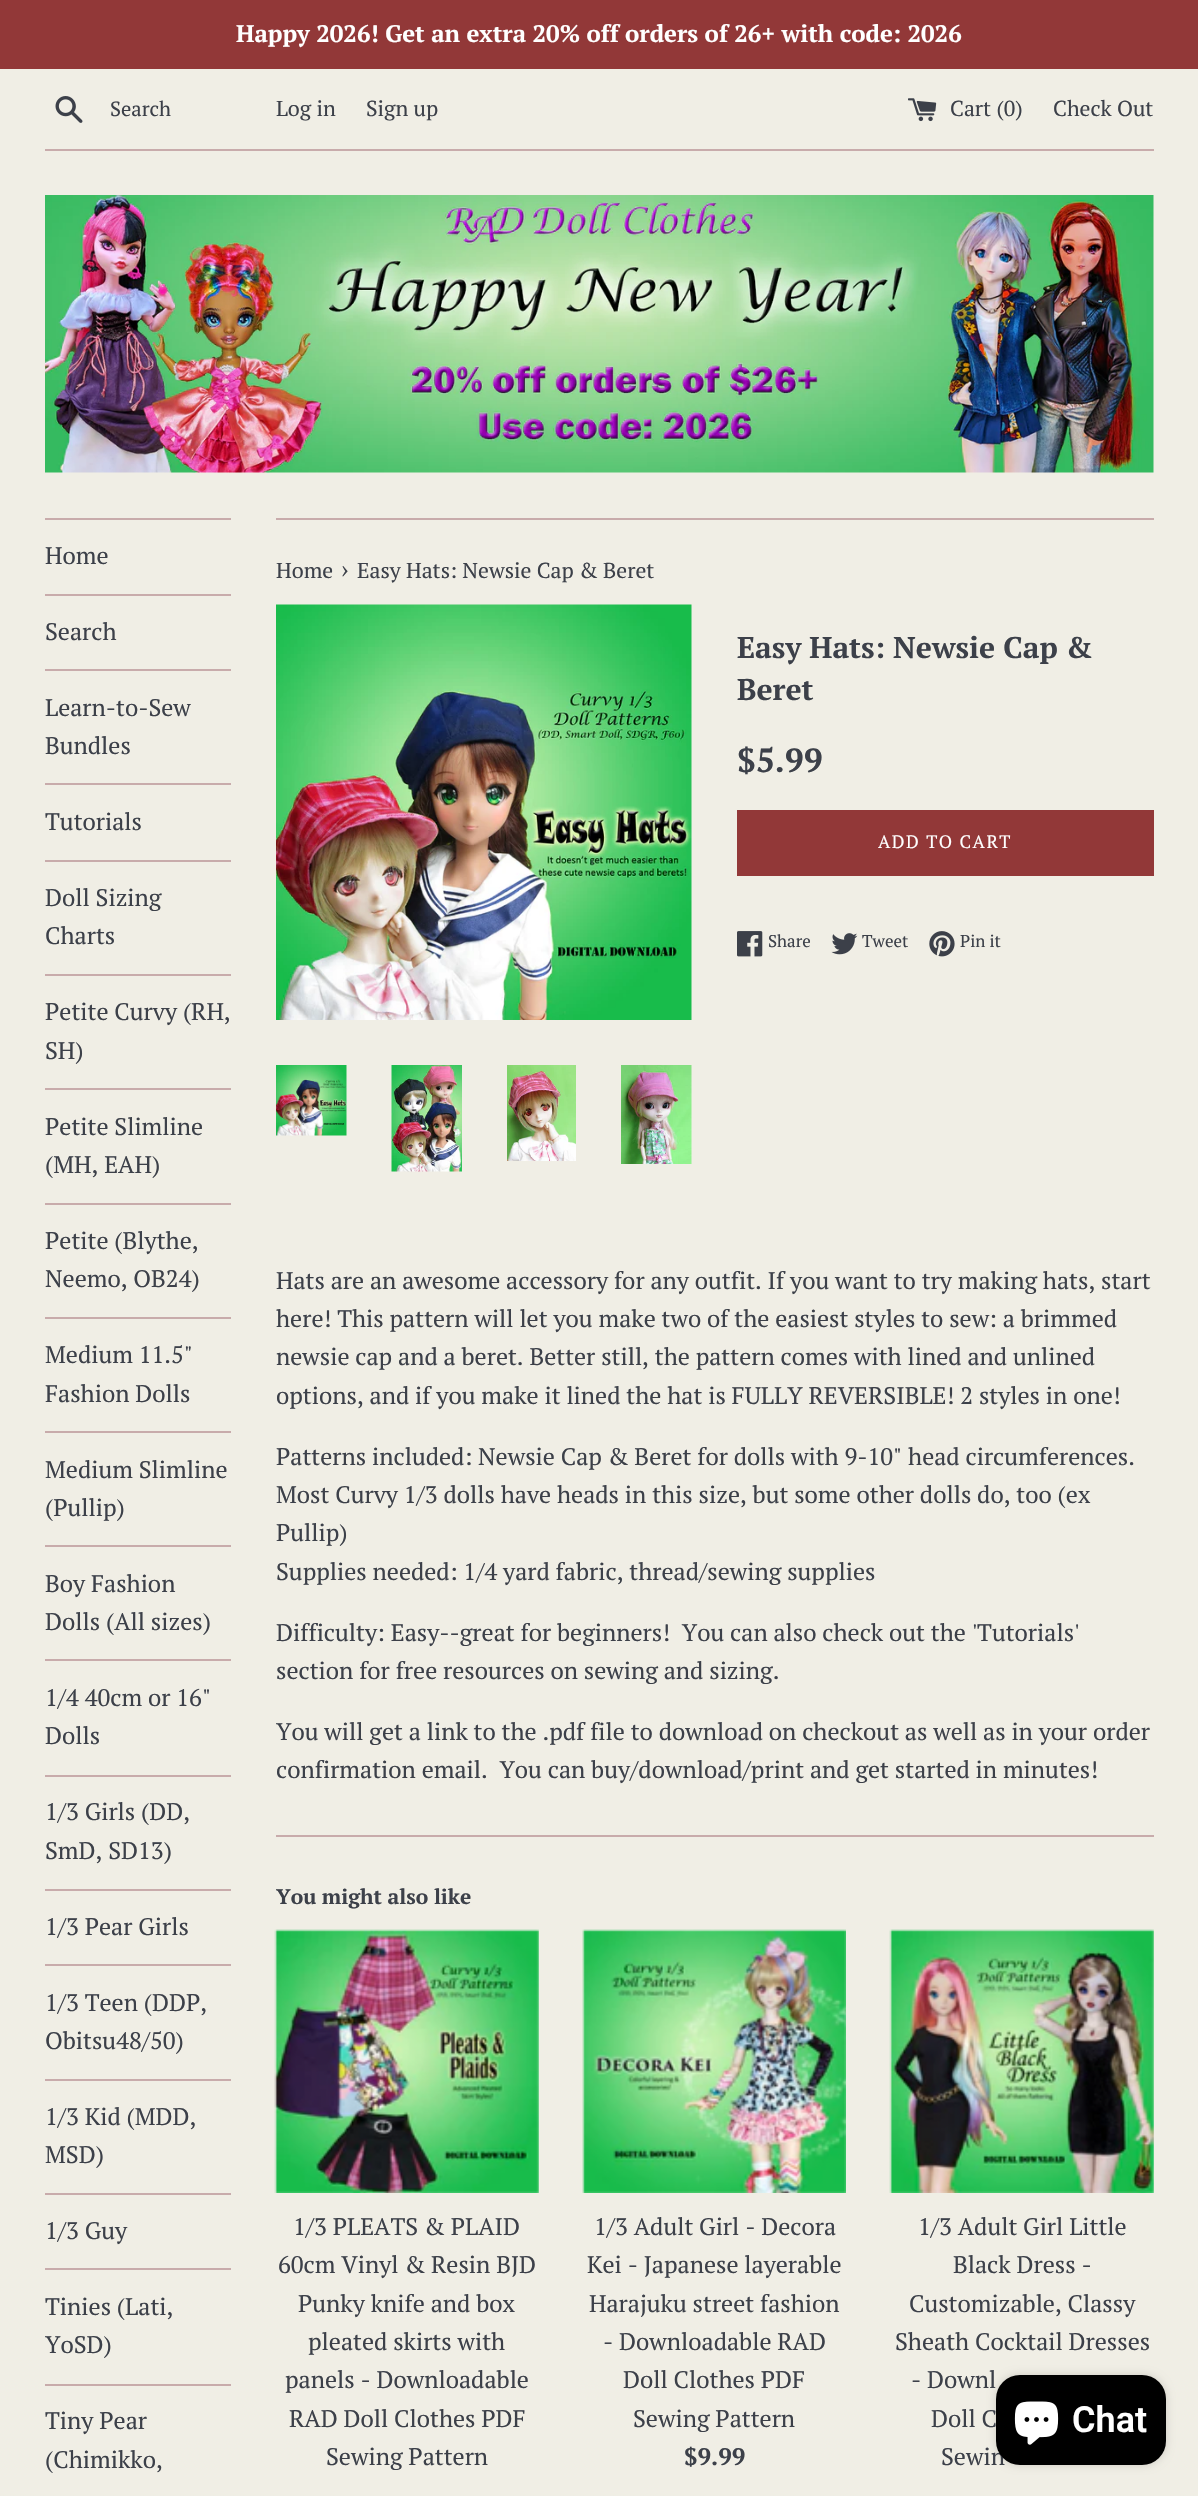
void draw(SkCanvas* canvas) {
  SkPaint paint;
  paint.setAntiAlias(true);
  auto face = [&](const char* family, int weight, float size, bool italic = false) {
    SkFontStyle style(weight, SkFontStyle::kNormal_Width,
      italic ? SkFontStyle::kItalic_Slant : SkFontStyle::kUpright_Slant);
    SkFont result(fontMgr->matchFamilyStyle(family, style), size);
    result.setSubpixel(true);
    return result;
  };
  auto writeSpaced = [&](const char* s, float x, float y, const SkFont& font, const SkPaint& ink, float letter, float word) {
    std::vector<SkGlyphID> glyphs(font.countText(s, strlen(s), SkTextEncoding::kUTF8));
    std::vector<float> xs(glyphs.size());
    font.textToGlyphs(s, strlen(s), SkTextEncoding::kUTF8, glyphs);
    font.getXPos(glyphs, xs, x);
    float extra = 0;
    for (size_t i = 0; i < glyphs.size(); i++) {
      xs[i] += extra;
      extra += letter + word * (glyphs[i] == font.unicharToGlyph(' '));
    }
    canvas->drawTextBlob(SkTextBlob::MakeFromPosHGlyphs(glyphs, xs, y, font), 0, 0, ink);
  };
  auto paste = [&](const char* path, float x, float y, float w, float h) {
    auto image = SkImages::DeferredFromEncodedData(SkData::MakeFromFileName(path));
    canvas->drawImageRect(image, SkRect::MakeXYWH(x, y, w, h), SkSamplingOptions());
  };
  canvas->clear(0xfff0eee5);
  paint.setColor(0xff923838);
  canvas->drawRect(SkRect::MakeXYWH(0, 0, 1198, 69), paint);
  paste("img/1.png", 55, 96, 28, 27);
  paste("img/2.png", 908, 98, 29, 24);
  paint.setColor(0xffc8abab);
  canvas->drawRect(SkRect::MakeXYWH(45, 149, 1109, 2), paint);
  paste("img/3.png", 45, 195, 1109, 278);
  {
    const struct { float x, y, w, h; SkColor color; } items[] = {
      {45, 518, 186, 2, 0xffc8abab},
      {45, 594, 186, 2, 0xffc8abab},
      {45, 669, 186, 2, 0xffc8abab},
      {45, 783, 186, 2, 0xffc8abab},
      {45, 860, 186, 2, 0xffc8abab},
      {45, 974, 186, 2, 0xffc8abab},
      {45, 1088, 186, 2, 0xffc8abab},
      {45, 1203, 186, 2, 0xffc8abab},
      {45, 1317, 186, 2, 0xffc8abab},
      {45, 1431, 186, 2, 0xffc8abab},
      {45, 1545, 186, 2, 0xffc8abab},
      {45, 1659, 186, 2, 0xffc8abab},
      {45, 1775, 186, 2, 0xffc8abab},
      {45, 1889, 186, 2, 0xffc8abab},
      {45, 1964, 186, 2, 0xffc8abab},
      {45, 2079, 186, 2, 0xffc8abab},
      {45, 2193, 186, 2, 0xffc8abab},
      {45, 2268, 186, 2, 0xffc8abab},
      {45, 2384, 186, 2, 0xffc8abab},
      {276, 518, 878, 2, 0xffc8abab},
    };
    for (auto [x, y, w, h, color] : items) {
      paint.setColor(color);
      canvas->drawRect(SkRect::MakeXYWH(x, y, w, h), paint);
    }
  }
  paste("img/4.png", 276, 604, 416, 416);
  paste("img/5.png", 276, 1065, 71, 71);
  paste("img/6.png", 391, 1065, 71, 107);
  paste("img/7.png", 507, 1065, 69, 96);
  paste("img/8.png", 621, 1065, 71, 99);
  paint.setColor(0xff923838);
  canvas->drawRect(SkRect::MakeXYWH(737, 810, 417, 66), paint);
  paste("img/9.png", 737, 931, 26, 26);
  paste("img/10.png", 831, 933, 27, 22);
  paste("img/11.png", 929, 931, 26, 26);
  paint.setColor(0xffc8abab);
  canvas->drawRect(SkRect::MakeXYWH(276, 1835, 878, 2), paint);
  paste("img/12.png", 274, 1929, 265, 264);
  paste("img/13.png", 582, 1929, 264, 264);
  paste("img/14.png", 889, 1929, 265, 264);
  paint.setColor(0x26000000);
  paint.setMaskFilter(SkMaskFilter::MakeBlur(kNormal_SkBlurStyle, 4));
  canvas->drawRoundRect(SkRect::MakeXYWH(996, 2375, 170, 90), 24, 24, paint);
  paint.setMaskFilter(nullptr);
  auto f0 = face("PT Serif", 700, 24);
  paint.setColor(0xffffffff);
  canvas->drawString("Happy 2026! Get an extra 20% off orders of 26+ with code: 2026", 236, 42, f0, paint);
  auto f1 = face("PT Serif", 400, 20.5f);
  paint.setColor(0xff3c4049);
  canvas->drawString("Search", 110, 116, f1, paint);
  auto f2 = face("PT Serif", 400, 21.6f);
  {
    const struct { const char* s; float x, y; } items[] = {
      {"Log in", 276, 116},
      {"Sign up", 366, 116},
      {"Cart (0)", 950, 116},
      {"Check Out", 1053, 116},
    };
    for (auto [s, x, y] : items) {
      canvas->drawString(s, x, y, f2, paint);
    }
  }
  auto f3 = face("PT Serif", 400, 24);
  {
    const struct { const char* s; float x, y; } items[] = {
      {"Home", 45, 564},
      {"Search", 45, 640},
      {"Learn-to-Sew", 45, 716},
      {"Bundles", 45, 754},
      {"Tutorials", 45, 830},
      {"Doll Sizing", 45, 906},
      {"Charts", 45, 944},
      {"Petite Curvy (RH,", 45, 1020},
      {"SH)", 45, 1059},
      {"Petite Slimline", 45, 1135},
      {"(MH, EAH)", 45, 1173},
      {"Petite (Blythe,", 45, 1249},
      {"Neemo, OB24)", 45, 1287},
      {"Medium 11.5\"", 45, 1363},
      {"Fashion Dolls", 45, 1402},
      {"Medium Slimline", 45, 1478},
      {"(Pullip)", 45, 1516},
      {"Boy Fashion", 45, 1592},
      {"Dolls (All sizes)", 45, 1630},
      {"1/4 40cm or 16\"", 45, 1706},
      {"Dolls", 45, 1744},
      {"1/3 Girls (DD,", 45, 1820},
      {"SmD, SD13)", 45, 1859},
      {"1/3 Pear Girls", 45, 1935},
      {"1/3 Teen (DDP,", 45, 2011},
      {"Obitsu48/50)", 45, 2049},
      {"1/3 Kid (MDD,", 45, 2125},
      {"MSD)", 45, 2163},
      {"1/3 Guy", 45, 2239},
      {"Tinies (Lati,", 45, 2315},
      {"YoSD)", 45, 2353},
      {"Tiny Pear", 45, 2429},
      {"(Chimikko,", 45, 2468},
    };
    for (auto [s, x, y] : items) {
      canvas->drawString(s, x, y, f3, paint);
    }
  }
  canvas->drawString("Home", 276, 578, f2, paint);
  auto f4 = face("PT Serif", 400, 26);
  canvas->drawString("›", 341, 578, f4, paint);
  canvas->drawString("Easy Hats: Newsie Cap & Beret", 357, 578, f2, paint);
  auto f5 = face("PT Serif", 700, 30);
  canvas->drawString("Easy Hats: Newsie Cap &", 737, 658, f5, paint);
  canvas->drawString("Beret", 737, 700, f5, paint);
  auto f6 = face("PT Serif", 700, 33.5f);
  canvas->drawString("$5.99", 737, 772, f6, paint);
  auto f7 = face("PT Serif", 400, 18);
  paint.setColor(0xffffffff);
  writeSpaced("ADD TO CART", 878, 848, f7, paint, 1.5f, 0);
  auto f8 = face("PT Serif", 400, 17);
  paint.setColor(0xff3c4049);
  {
    const struct { const char* s; float x, y; } items[] = {
      {"Share", 768, 947},
      {"Tweet", 862, 947},
      {"Pin it", 960, 947},
    };
    for (auto [s, x, y] : items) {
      canvas->drawString(s, x, y, f8, paint);
    }
  }
  {
    const struct { const char* s; float x, y; } items[] = {
      {"Hats are an awesome accessory for any outfit. If you want to try making hats, start", 276, 1289},
      {"here! This pattern will let you make two of the easiest styles to sew: a brimmed", 276, 1327},
      {"newsie cap and a beret. Better still, the pattern comes with lined and unlined", 276, 1365},
      {"options, and if you make it lined the hat is FULLY REVERSIBLE! 2 styles in one!", 276, 1404},
      {"Patterns included: Newsie Cap & Beret for dolls with 9-10\" head circumferences.", 276, 1465},
      {"Most Curvy 1/3 dolls have heads in this size, but some other dolls do, too (ex", 276, 1503},
      {"Pullip)", 276, 1541},
      {"Supplies needed: 1/4 yard fabric, thread/sewing supplies", 276, 1580},
      {"Difficulty: Easy--great for beginners!  You can also check out the 'Tutorials'", 276, 1641},
      {"section for free resources on sewing and sizing.", 276, 1679},
      {"You will get a link to the .pdf file to download on checkout as well as in your order", 276, 1740},
      {"confirmation email.  You can buy/download/print and get started in minutes!", 276, 1778},
    };
    for (auto [s, x, y] : items) {
      canvas->drawString(s, x, y, f3, paint);
    }
  }
  auto f9 = face("PT Serif", 700, 21);
  canvas->drawString("You might also like", 276, 1904, f9, paint);
  {
    const struct { const char* s; float x, y; } items[] = {
      {"1/3 PLEATS & PLAID", 293, 2235},
      {"60cm Vinyl & Resin BJD", 278, 2273},
      {"Punky knife and box", 298, 2312},
      {"pleated skirts with", 308, 2350},
      {"panels - Downloadable", 285, 2388},
      {"RAD Doll Clothes PDF", 289, 2427},
      {"Sewing Pattern", 326, 2465},
      {"1/3 Adult Girl - Decora", 594, 2235},
      {"Kei - Japanese layerable", 587, 2273},
      {"Harajuku street fashion", 589, 2312},
      {"- Downloadable RAD", 603, 2350},
      {"Doll Clothes PDF", 623, 2388},
      {"Sewing Pattern", 633, 2427},
    };
    for (auto [s, x, y] : items) {
      canvas->drawString(s, x, y, f3, paint);
    }
  }
  canvas->drawString("$9.99", 684, 2465, f0, paint);
  {
    const struct { const char* s; float x, y; } items[] = {
      {"1/3 Adult Girl Little", 918, 2235},
      {"Black Dress -", 953, 2273},
      {"Customizable, Classy", 909, 2312},
      {"Sheath Cocktail Dresses", 895, 2350},
      {"- Downl", 911, 2388},
      {"Doll C", 931, 2427},
      {"Sewin", 941, 2465},
    };
    for (auto [s, x, y] : items) {
      canvas->drawString(s, x, y, f3, paint);
    }
  }
  paint.setColor(0xff000000);
  canvas->drawRoundRect(SkRect::MakeXYWH(996, 2375, 170, 90), 24, 24, paint);
  paste("img/15.png", 1014, 2401, 45, 44);
  auto f10 = face("Roboto", 600, 36);
  paint.setColor(0xffffffff);
  canvas->drawString("Chat", 1072, 2432, f10, paint);
}
